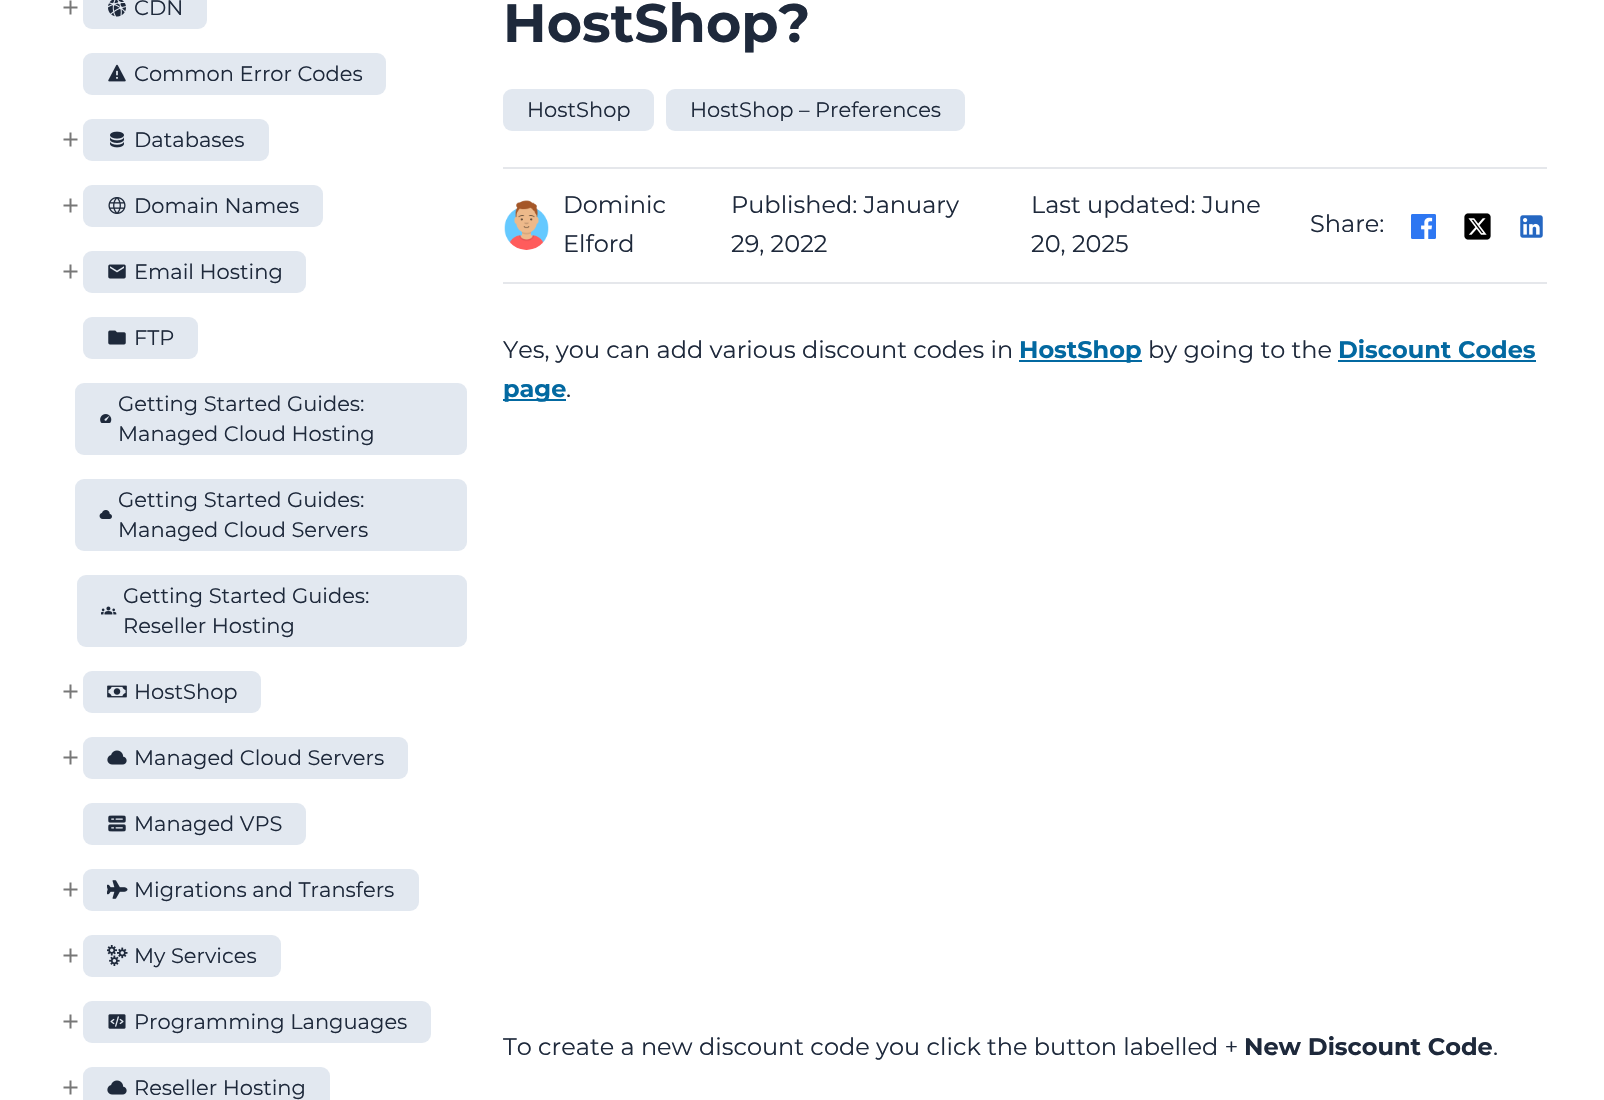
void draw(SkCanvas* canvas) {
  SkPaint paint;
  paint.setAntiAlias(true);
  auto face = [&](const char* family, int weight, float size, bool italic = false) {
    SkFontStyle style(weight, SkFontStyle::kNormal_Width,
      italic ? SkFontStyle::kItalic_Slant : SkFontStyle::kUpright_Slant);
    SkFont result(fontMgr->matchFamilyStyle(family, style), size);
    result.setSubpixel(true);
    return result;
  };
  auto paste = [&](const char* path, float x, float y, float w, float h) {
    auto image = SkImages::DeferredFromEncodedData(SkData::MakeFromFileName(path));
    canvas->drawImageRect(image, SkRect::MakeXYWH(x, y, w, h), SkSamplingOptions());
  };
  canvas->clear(0xffffffff);
  paste("img/1.png", 63, 0, 15, 15);
  paint.setColor(0xffe2e8f0);
  canvas->drawRoundRect(SkRect::MakeXYWH(83, -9, 124, 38), 9, 9, paint);
  paste("img/2.png", 108, 0, 18, 17);
  canvas->drawRoundRect(SkRect::MakeXYWH(83, 53, 303, 42), 9, 9, paint);
  paste("img/3.png", 108, 64, 18, 18);
  paste("img/1.png", 63, 132, 15, 15);
  canvas->drawRoundRect(SkRect::MakeXYWH(83, 119, 186, 42), 9, 9, paint);
  paste("img/4.png", 110, 131, 14, 17);
  paste("img/1.png", 63, 198, 15, 15);
  canvas->drawRoundRect(SkRect::MakeXYWH(83, 185, 240, 42), 9, 9, paint);
  paste("img/5.png", 108, 197, 18, 17);
  paste("img/1.png", 63, 264, 15, 15);
  canvas->drawRoundRect(SkRect::MakeXYWH(83, 251, 223, 42), 9, 9, paint);
  paste("img/6.png", 108, 264, 18, 15);
  canvas->drawRoundRect(SkRect::MakeXYWH(83, 317, 115, 42), 9, 9, paint);
  paste("img/7.png", 108, 330, 18, 15);
  canvas->drawRoundRect(SkRect::MakeXYWH(75, 383, 392, 72), 9, 9, paint);
  paste("img/8.png", 100, 414, 12, 9);
  canvas->drawRoundRect(SkRect::MakeXYWH(75, 479, 392, 72), 9, 9, paint);
  paste("img/9.png", 99, 510, 13, 9);
  canvas->drawRoundRect(SkRect::MakeXYWH(77, 575, 390, 72), 9, 9, paint);
  paste("img/10.png", 101, 606, 16, 9);
  paste("img/1.png", 63, 684, 15, 15);
  canvas->drawRoundRect(SkRect::MakeXYWH(83, 671, 178, 42), 9, 9, paint);
  paste("img/11.png", 107, 685, 20, 13);
  paste("img/1.png", 63, 750, 15, 15);
  canvas->drawRoundRect(SkRect::MakeXYWH(83, 737, 325, 42), 9, 9, paint);
  paste("img/12.png", 107, 750, 20, 15);
  canvas->drawRoundRect(SkRect::MakeXYWH(83, 803, 223, 42), 9, 9, paint);
  paste("img/13.png", 108, 815, 18, 17);
  paste("img/1.png", 63, 882, 15, 15);
  canvas->drawRoundRect(SkRect::MakeXYWH(83, 869, 336, 42), 9, 9, paint);
  paste("img/14.png", 107, 880, 21, 19);
  paste("img/1.png", 63, 948, 15, 15);
  canvas->drawRoundRect(SkRect::MakeXYWH(83, 935, 198, 42), 9, 9, paint);
  paste("img/15.png", 107, 945, 21, 21);
  paste("img/1.png", 63, 1014, 15, 15);
  canvas->drawRoundRect(SkRect::MakeXYWH(83, 1001, 348, 42), 9, 9, paint);
  paste("img/16.png", 108, 1014, 18, 15);
  paste("img/1.png", 63, 1080, 15, 15);
  canvas->drawRoundRect(SkRect::MakeXYWH(83, 1067, 247, 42), 9, 9, paint);
  paste("img/12.png", 107, 1080, 20, 15);
  canvas->drawRoundRect(SkRect::MakeXYWH(503, 89, 151, 42), 9, 9, paint);
  canvas->drawRoundRect(SkRect::MakeXYWH(666, 89, 299, 42), 9, 9, paint);
  paint.setColor(0xffe5e7eb);
  canvas->drawRect(SkRect::MakeXYWH(503, 167, 1044, 2), paint);
  canvas->drawRect(SkRect::MakeXYWH(503, 282, 1044, 2), paint);
  paste("img/17.png", 504, 200, 45, 50);
  paste("img/18.png", 1411, 214, 25, 25);
  paste("img/19.png", 1464, 213, 27, 27);
  paste("img/20.png", 1520, 215, 23, 23);
  {
    const struct { float x, y, w, h; SkColor color; } items[] = {
      {1019, 360, 123, 2, 0xff0369a1},
      {1338, 360, 198, 2, 0xff0369a1},
      {503, 399, 63, 2, 0xff0369a1},
    };
    for (auto [x, y, w, h, color] : items) {
      paint.setColor(color);
      canvas->drawRect(SkRect::MakeXYWH(x, y, w, h), paint);
    }
  }
  auto f0 = face("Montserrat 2", 100, 21);
  paint.setColor(0xff1e293b);
  {
    const struct { const char* s; float x, y; } items[] = {
      {"CDN", 134, 15},
      {"Common Error Codes", 134, 81},
      {"Databases", 134, 147},
      {"Domain Names", 134, 213},
      {"Email Hosting", 134, 279},
      {"FTP", 134, 345},
      {"Getting Started Guides:", 118, 411},
      {"Managed Cloud Hosting", 118, 441},
      {"Getting Started Guides:", 118, 507},
      {"Managed Cloud Servers", 118, 537},
      {"Getting Started Guides:", 123, 603},
      {"Reseller Hosting", 123, 633},
      {"HostShop", 134, 699},
      {"Managed Cloud Servers", 134, 765},
      {"Managed VPS", 134, 831},
      {"Migrations and Transfers", 134, 897},
      {"My Services", 134, 963},
      {"Programming Languages", 134, 1029},
      {"Reseller Hosting", 134, 1095},
    };
    for (auto [s, x, y] : items) {
      canvas->drawString(s, x, y, f0, paint);
    }
  }
  auto f1 = face("Montserrat", 100, 54);
  canvas->drawString("HostShop?", 503, 42, f1, paint);
  canvas->drawString("HostShop", 527, 117, f0, paint);
  canvas->drawString("HostShop – Preferences", 690, 117, f0, paint);
  auto f2 = face("Montserrat 2", 100, 24);
  {
    const struct { const char* s; float x, y; } items[] = {
      {"Dominic", 563, 213},
      {"Elford", 563, 252},
      {"Published: January", 731, 213},
      {"29, 2022", 731, 252},
      {"Last updated: June", 1031, 213},
      {"20, 2025", 1031, 252},
      {"Share:", 1310, 232},
      {"Yes, you can add various discount codes in", 503, 358},
    };
    for (auto [s, x, y] : items) {
      canvas->drawString(s, x, y, f2, paint);
    }
  }
  auto f3 = face("Montserrat", 100, 24);
  paint.setColor(0xff0369a1);
  canvas->drawString("HostShop", 1019, 358, f3, paint);
  paint.setColor(0xff1e293b);
  canvas->drawString("by going to the", 1148, 358, f2, paint);
  paint.setColor(0xff0369a1);
  canvas->drawString("Discount Codes", 1338, 358, f3, paint);
  canvas->drawString("page", 503, 397, f3, paint);
  paint.setColor(0xff1e293b);
  canvas->drawString(".", 566, 397, f2, paint);
  canvas->drawString("To create a new discount code you click the button labelled +", 503, 1055, f2, paint);
  canvas->drawString("New Discount Code", 1244, 1055, f3, paint);
  canvas->drawString(".", 1493, 1055, f2, paint);
}
